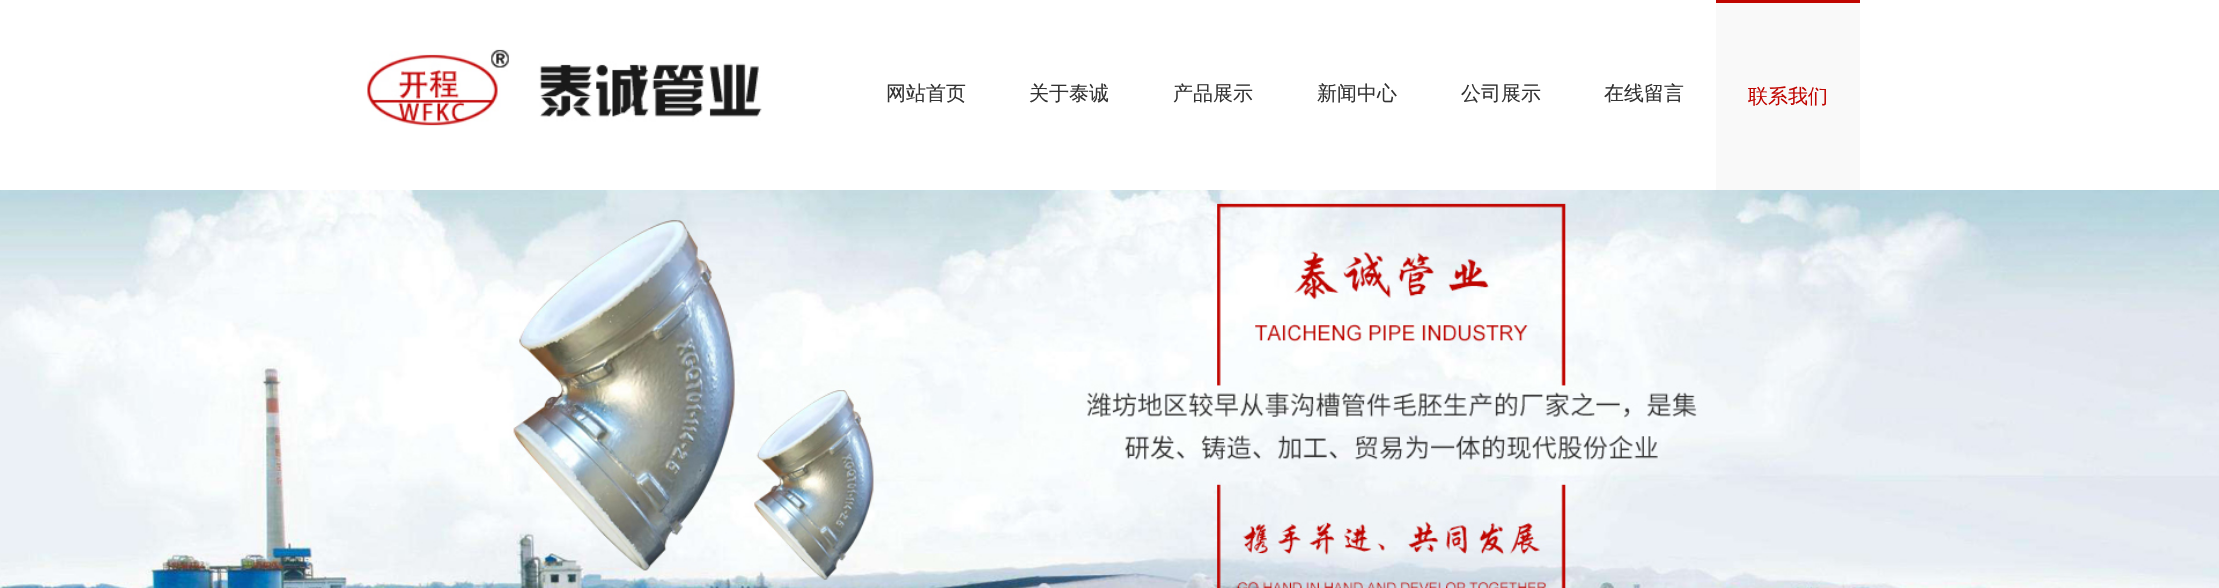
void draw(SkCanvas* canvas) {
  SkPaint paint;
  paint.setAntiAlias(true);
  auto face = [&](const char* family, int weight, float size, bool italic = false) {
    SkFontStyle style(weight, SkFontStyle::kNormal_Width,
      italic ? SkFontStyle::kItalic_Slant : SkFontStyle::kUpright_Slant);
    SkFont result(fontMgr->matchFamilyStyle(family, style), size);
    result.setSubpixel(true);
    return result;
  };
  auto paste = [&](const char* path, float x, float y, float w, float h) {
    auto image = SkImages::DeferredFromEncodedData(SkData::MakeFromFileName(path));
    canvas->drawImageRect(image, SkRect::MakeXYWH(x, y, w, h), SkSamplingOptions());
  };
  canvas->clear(0xffffffff);
  paste("img/1.png", 367, 49, 395, 77);
  paint.setColor(0xfff9f9f9);
  canvas->drawRect(SkRect::MakeXYWH(1716, 3, 144, 187), paint);
  paint.setColor(0xffc00500);
  canvas->drawRect(SkRect::MakeXYWH(1716, 0, 144, 3), paint);
  paste("img/2.png", 0, 190, 2219, 398);
  auto f0 = face("WenQuanYi Zen Hei", 500, 20);
  paint.setColor(0xff333333);
  {
    const struct { const char* s; float x, y; } items[] = {
      {"网站首页", 886, 100},
      {"关于泰诚", 1029, 100},
      {"产品展示", 1173, 100},
      {"新闻中心", 1317, 100},
      {"公司展示", 1461, 100},
      {"在线留言", 1604, 100},
    };
    for (auto [s, x, y] : items) {
      canvas->drawString(s, x, y, f0, paint);
    }
  }
  paint.setColor(0xffc00500);
  canvas->drawString("联系我们", 1748, 103, f0, paint);
}
